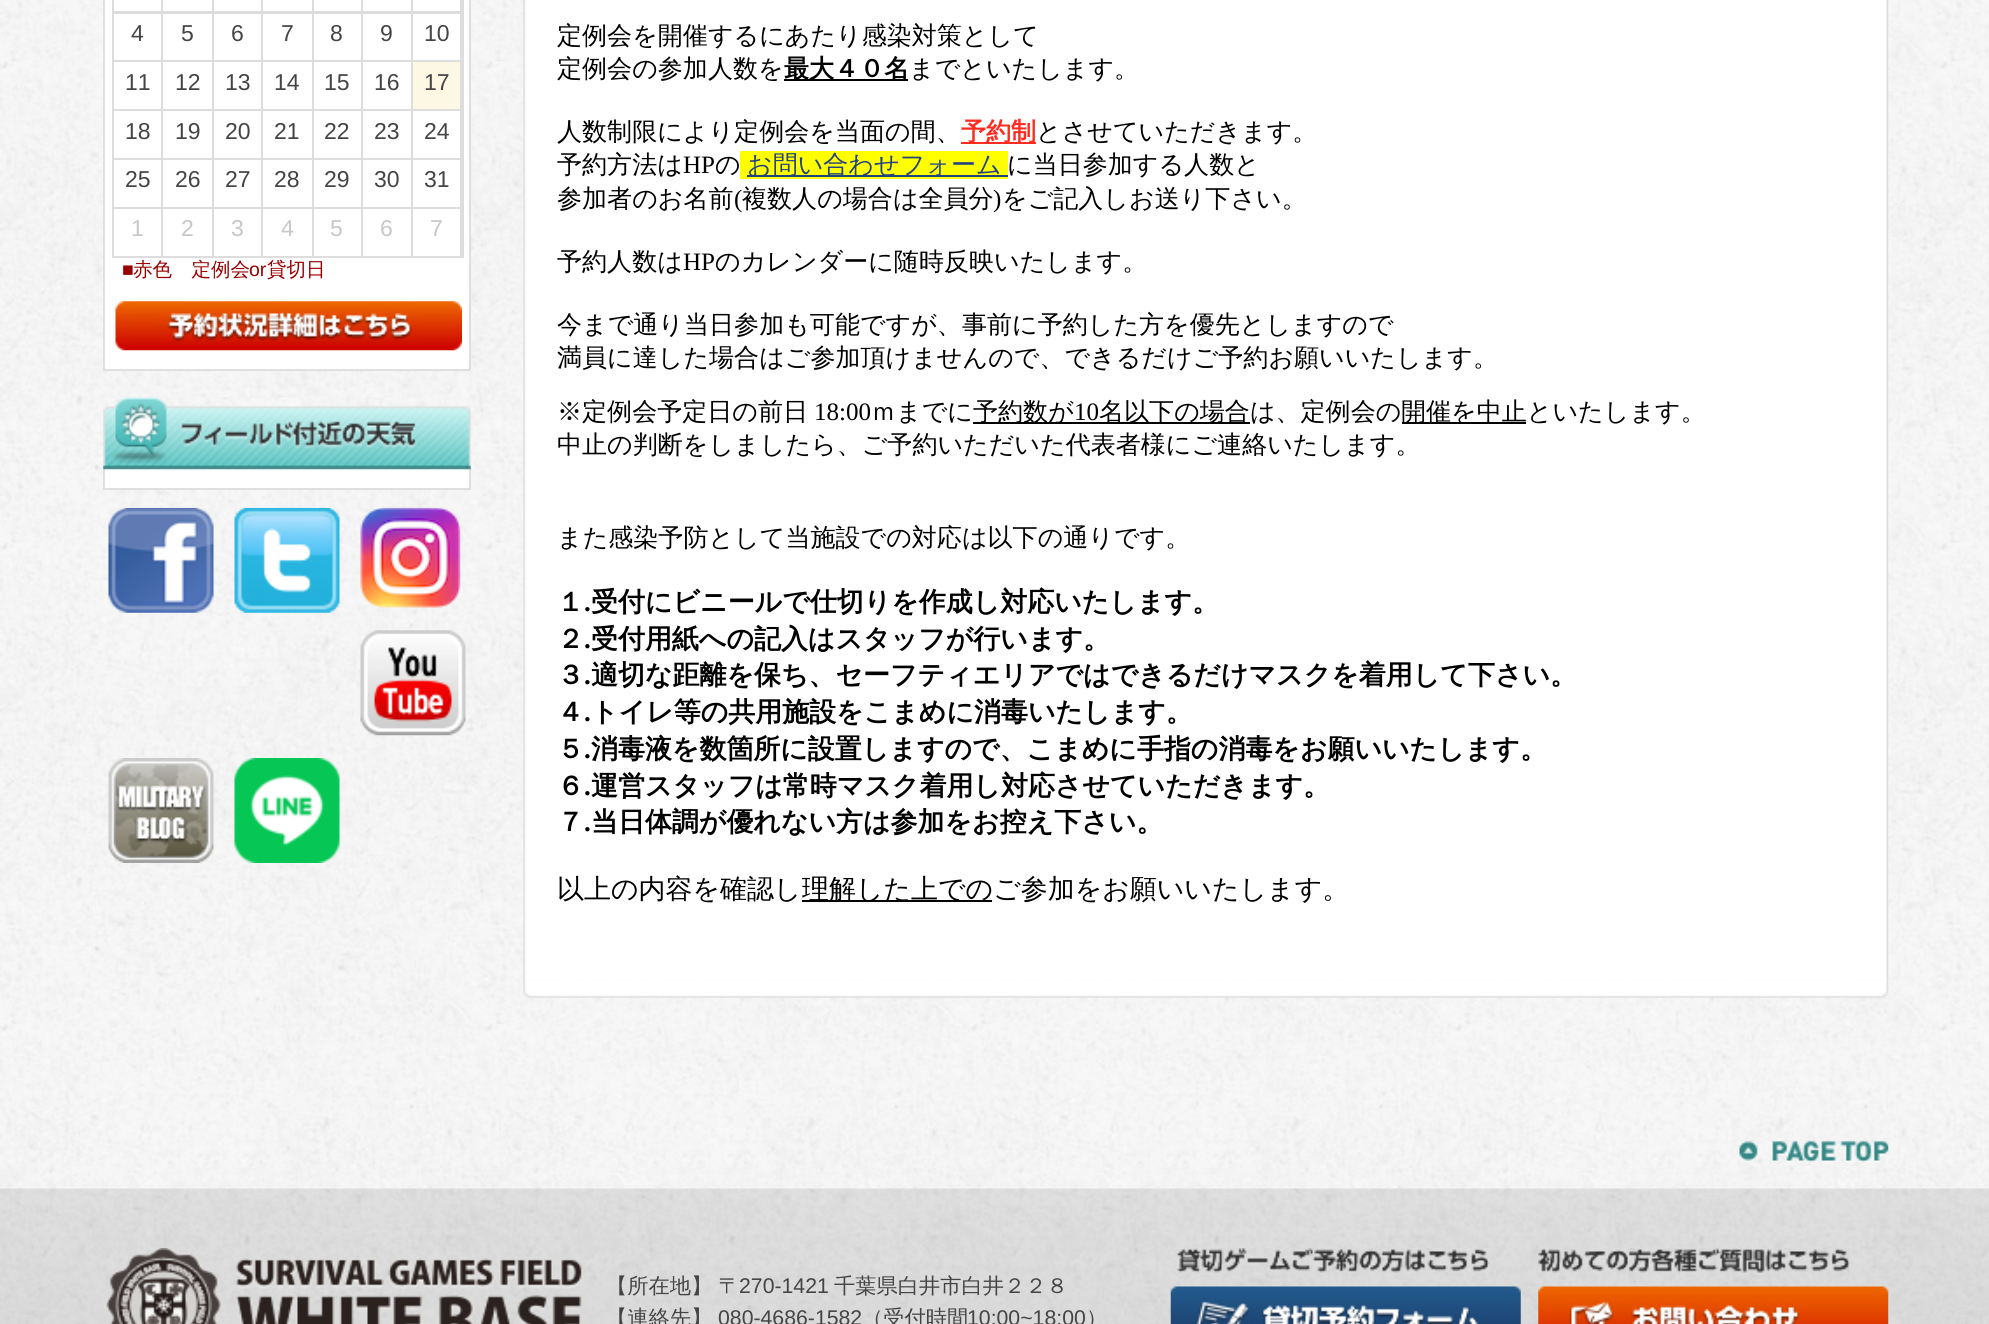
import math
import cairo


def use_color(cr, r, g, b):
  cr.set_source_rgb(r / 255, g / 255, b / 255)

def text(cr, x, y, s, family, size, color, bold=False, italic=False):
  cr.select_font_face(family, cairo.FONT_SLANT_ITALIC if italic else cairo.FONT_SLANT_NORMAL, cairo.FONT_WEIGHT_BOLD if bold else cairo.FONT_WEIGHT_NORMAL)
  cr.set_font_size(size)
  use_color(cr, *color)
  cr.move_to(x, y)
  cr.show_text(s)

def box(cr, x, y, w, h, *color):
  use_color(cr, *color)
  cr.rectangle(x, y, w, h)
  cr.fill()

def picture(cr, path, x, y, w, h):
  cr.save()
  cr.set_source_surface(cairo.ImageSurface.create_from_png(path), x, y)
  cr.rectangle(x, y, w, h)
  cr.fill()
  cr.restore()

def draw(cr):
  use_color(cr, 255, 255, 255)
  cr.paint()
  picture(cr, "img_01.png", 0, 0, 1989, 1189)
  box(cr, 105, 0, 364, 369, 255, 255, 255)
  box(cr, 469, 0, 2, 371, 223, 223, 223)
  box(cr, 103, 369, 368, 2, 223, 223, 223)
  box(cr, 103, 0, 2, 371, 223, 223, 223)
  box(cr, 462, 0, 2, 257, 221, 221, 221)
  box(cr, 112, 256, 352, 2, 221, 221, 221)
  box(cr, 112, 0, 2, 257, 221, 221, 221)
  box(cr, 460, 0, 2, 12, 221, 221, 221)
  box(cr, 411, 11, 51, 3, 221, 221, 221)
  box(cr, 411, 0, 2, 61, 221, 221, 221)
  box(cr, 361, 11, 52, 3, 221, 221, 221)
  box(cr, 361, 0, 2, 12, 221, 221, 221)
  box(cr, 312, 11, 50, 1, 221, 221, 221)
  box(cr, 312, 0, 2, 12, 221, 221, 221)
  box(cr, 261, 11, 52, 1, 221, 221, 221)
  box(cr, 261, 0, 2, 12, 221, 221, 221)
  box(cr, 212, 11, 51, 1, 221, 221, 221)
  box(cr, 212, 0, 2, 12, 221, 221, 221)
  box(cr, 161, 11, 53, 1, 221, 221, 221)
  box(cr, 161, 0, 2, 12, 221, 221, 221)
  box(cr, 112, 11, 51, 1, 221, 221, 221)
  box(cr, 460, 12, 2, 49, 221, 221, 221)
  box(cr, 361, 60, 101, 2, 221, 221, 221)
  box(cr, 361, 12, 2, 49, 221, 221, 221)
  box(cr, 312, 12, 50, 2, 221, 221, 221)
  box(cr, 312, 60, 50, 2, 221, 221, 221)
  box(cr, 312, 12, 2, 49, 221, 221, 221)
  box(cr, 261, 12, 52, 2, 221, 221, 221)
  box(cr, 261, 60, 52, 2, 221, 221, 221)
  box(cr, 261, 12, 2, 49, 221, 221, 221)
  box(cr, 212, 12, 51, 2, 221, 221, 221)
  box(cr, 212, 60, 51, 2, 221, 221, 221)
  box(cr, 212, 12, 2, 49, 221, 221, 221)
  box(cr, 161, 12, 53, 2, 221, 221, 221)
  box(cr, 161, 60, 53, 2, 221, 221, 221)
  box(cr, 161, 12, 2, 49, 221, 221, 221)
  box(cr, 112, 12, 51, 2, 221, 221, 221)
  box(cr, 112, 60, 51, 2, 221, 221, 221)
  box(cr, 460, 60, 2, 50, 221, 221, 221)
  box(cr, 411, 109, 51, 2, 221, 221, 221)
  box(cr, 411, 60, 2, 50, 221, 221, 221)
  box(cr, 361, 109, 52, 2, 221, 221, 221)
  box(cr, 361, 60, 2, 50, 221, 221, 221)
  box(cr, 312, 109, 50, 2, 221, 221, 221)
  box(cr, 312, 60, 2, 50, 221, 221, 221)
  box(cr, 261, 109, 52, 2, 221, 221, 221)
  box(cr, 261, 60, 2, 50, 221, 221, 221)
  box(cr, 212, 109, 51, 2, 221, 221, 221)
  box(cr, 212, 60, 2, 50, 221, 221, 221)
  box(cr, 161, 109, 53, 2, 221, 221, 221)
  box(cr, 161, 60, 2, 50, 221, 221, 221)
  box(cr, 112, 109, 51, 2, 221, 221, 221)
  box(cr, 413, 62, 47, 47, 252, 248, 227)
  box(cr, 460, 109, 2, 50, 221, 221, 221)
  box(cr, 411, 158, 51, 2, 221, 221, 221)
  box(cr, 411, 109, 2, 50, 221, 221, 221)
  box(cr, 361, 158, 52, 2, 221, 221, 221)
  box(cr, 361, 109, 2, 50, 221, 221, 221)
  box(cr, 312, 158, 50, 2, 221, 221, 221)
  box(cr, 312, 109, 2, 50, 221, 221, 221)
  box(cr, 261, 158, 52, 2, 221, 221, 221)
  box(cr, 261, 109, 2, 50, 221, 221, 221)
  box(cr, 212, 158, 51, 2, 221, 221, 221)
  box(cr, 212, 109, 2, 50, 221, 221, 221)
  box(cr, 161, 158, 53, 2, 221, 221, 221)
  box(cr, 161, 109, 2, 50, 221, 221, 221)
  box(cr, 112, 158, 51, 2, 221, 221, 221)
  box(cr, 460, 158, 2, 50, 221, 221, 221)
  box(cr, 411, 207, 51, 2, 221, 221, 221)
  box(cr, 411, 158, 2, 50, 221, 221, 221)
  box(cr, 361, 207, 52, 2, 221, 221, 221)
  box(cr, 361, 158, 2, 50, 221, 221, 221)
  box(cr, 312, 207, 50, 2, 221, 221, 221)
  box(cr, 312, 158, 2, 50, 221, 221, 221)
  box(cr, 261, 207, 52, 2, 221, 221, 221)
  box(cr, 261, 158, 2, 50, 221, 221, 221)
  box(cr, 212, 207, 51, 2, 221, 221, 221)
  box(cr, 212, 158, 2, 50, 221, 221, 221)
  box(cr, 161, 207, 53, 2, 221, 221, 221)
  box(cr, 161, 158, 2, 50, 221, 221, 221)
  box(cr, 112, 207, 51, 2, 221, 221, 221)
  box(cr, 161, 207, 2, 50, 221, 221, 221)
  box(cr, 212, 207, 2, 50, 221, 221, 221)
  box(cr, 261, 207, 2, 50, 221, 221, 221)
  box(cr, 312, 207, 2, 50, 221, 221, 221)
  box(cr, 361, 207, 2, 50, 221, 221, 221)
  box(cr, 460, 207, 2, 50, 221, 221, 221)
  box(cr, 411, 207, 2, 50, 221, 221, 221)
  picture(cr, "img_02.png", 115, 301, 347, 50)
  box(cr, 105, 469, 364, 19, 255, 255, 255)
  box(cr, 469, 469, 2, 21, 223, 223, 223)
  box(cr, 103, 488, 368, 2, 223, 223, 223)
  box(cr, 103, 469, 2, 21, 223, 223, 223)
  picture(cr, "img_03.png", 103, 397, 368, 73)
  picture(cr, "img_04.png", 108, 507, 106, 106)
  picture(cr, "img_05.png", 234, 507, 106, 106)
  picture(cr, "img_06.png", 360, 507, 101, 101)
  picture(cr, "img_07.png", 360, 630, 106, 106)
  picture(cr, "img_08.png", 108, 758, 106, 105)
  picture(cr, "img_09.png", 234, 758, 106, 105)
  picture(cr, "img_10.png", 523, 980, 1366, 18)
  picture(cr, "img_11.png", 523, 0, 1366, 980)
  box(cr, 784, 79, 124, 2, 0, 0, 0)
  box(cr, 961, 142, 75, 2, 255, 45, 33)
  box(cr, 740, 151, 268, 28, 255, 255, 0)
  box(cr, 747, 175, 261, 2, 35, 66, 130)
  box(cr, 973, 422, 277, 2, 0, 0, 0)
  box(cr, 1402, 422, 124, 2, 0, 0, 0)
  box(cr, 802, 900, 190, 2, 0, 0, 0)
  picture(cr, "img_12.png", 1738, 1138, 151, 28)
  picture(cr, "img_13.png", 0, 1188, 1989, 136)
  picture(cr, "img_14.png", 106, 1248, 477, 76)
  picture(cr, "img_15.png", 1175, 1248, 315, 25)
  picture(cr, "img_16.png", 1170, 1286, 351, 38)
  picture(cr, "img_17.png", 1538, 1248, 312, 25)
  picture(cr, "img_18.png", 1538, 1286, 351, 38)
  text(cr, 131, 41, "4", "Liberation Sans", 23, (68, 68, 68))
  text(cr, 181, 41, "5", "Liberation Sans", 23, (68, 68, 68))
  text(cr, 231, 41, "6", "Liberation Sans", 23, (68, 68, 68))
  text(cr, 281, 41, "7", "Liberation Sans", 23, (68, 68, 68))
  text(cr, 330, 41, "8", "Liberation Sans", 23, (68, 68, 68))
  text(cr, 380, 41, "9", "Liberation Sans", 23, (68, 68, 68))
  text(cr, 424, 41, "10", "Liberation Sans", 23, (68, 68, 68))
  text(cr, 125, 90, "11", "Liberation Sans", 23, (68, 68, 68))
  text(cr, 175, 90, "12", "Liberation Sans", 23, (68, 68, 68))
  text(cr, 225, 90, "13", "Liberation Sans", 23, (68, 68, 68))
  text(cr, 274, 90, "14", "Liberation Sans", 23, (68, 68, 68))
  text(cr, 324, 90, "15", "Liberation Sans", 23, (68, 68, 68))
  text(cr, 374, 90, "16", "Liberation Sans", 23, (68, 68, 68))
  text(cr, 424, 90, "17", "Liberation Sans", 23, (68, 68, 68))
  text(cr, 125, 139, "18", "Liberation Sans", 23, (68, 68, 68))
  text(cr, 175, 139, "19", "Liberation Sans", 23, (68, 68, 68))
  text(cr, 225, 139, "20", "Liberation Sans", 23, (68, 68, 68))
  text(cr, 274, 139, "21", "Liberation Sans", 23, (68, 68, 68))
  text(cr, 324, 139, "22", "Liberation Sans", 23, (68, 68, 68))
  text(cr, 374, 139, "23", "Liberation Sans", 23, (68, 68, 68))
  text(cr, 424, 139, "24", "Liberation Sans", 23, (68, 68, 68))
  text(cr, 125, 187, "25", "Liberation Sans", 23, (68, 68, 68))
  text(cr, 175, 187, "26", "Liberation Sans", 23, (68, 68, 68))
  text(cr, 225, 187, "27", "Liberation Sans", 23, (68, 68, 68))
  text(cr, 274, 187, "28", "Liberation Sans", 23, (68, 68, 68))
  text(cr, 324, 187, "29", "Liberation Sans", 23, (68, 68, 68))
  text(cr, 374, 187, "30", "Liberation Sans", 23, (68, 68, 68))
  text(cr, 424, 187, "31", "Liberation Sans", 23, (68, 68, 68))
  text(cr, 131, 236, "1", "Liberation Sans", 23, (199, 199, 199))
  text(cr, 181, 236, "2", "Liberation Sans", 23, (199, 199, 199))
  text(cr, 231, 236, "3", "Liberation Sans", 23, (199, 199, 199))
  text(cr, 281, 236, "4", "Liberation Sans", 23, (199, 199, 199))
  text(cr, 330, 236, "5", "Liberation Sans", 23, (199, 199, 199))
  text(cr, 380, 236, "6", "Liberation Sans", 23, (199, 199, 199))
  text(cr, 430, 236, "7", "Liberation Sans", 23, (199, 199, 199))
  text(cr, 122, 276, "■", "Liberation Sans", 19.5, (153, 0, 0))
  text(cr, 133, 276, "赤色　定例会", "WenQuanYi Zen Hei Medium", 19.5, (153, 0, 0))
  text(cr, 249, 276, "or", "Liberation Sans", 19.5, (153, 0, 0))
  text(cr, 267, 276, "貸切日", "WenQuanYi Zen Hei Medium", 19.5, (153, 0, 0))
  text(cr, 557, 44, "定例会を開催するにあたり感染対策として", "WenQuanYi Zen Hei Medium", 25.05, (0, 0, 0))
  text(cr, 557, 77, "定例会の参加人数を", "WenQuanYi Zen Hei Medium", 25.05, (0, 0, 0))
  text(cr, 784, 77, "最大４０名", "WenQuanYi Zen Hei", 25.05, (0, 0, 0), bold=True)
  text(cr, 909, 77, "までといたします。", "WenQuanYi Zen Hei Medium", 25.05, (0, 0, 0))
  text(cr, 557, 140, "人数制限により定例会を当面の間、", "WenQuanYi Zen Hei Medium", 25.05, (0, 0, 0))
  text(cr, 961, 140, "予約制", "WenQuanYi Zen Hei", 25.05, (255, 45, 33), bold=True)
  text(cr, 1036, 140, "とさせていただきます。", "WenQuanYi Zen Hei Medium", 25.05, (0, 0, 0))
  text(cr, 557, 173, "予約方法は", "WenQuanYi Zen Hei Medium", 25.05, (0, 0, 0))
  text(cr, 683, 173, "HP", "Liberation Serif", 25.05, (0, 0, 0))
  text(cr, 715, 173, "の", "WenQuanYi Zen Hei Medium", 25.05, (0, 0, 0))
  text(cr, 747, 173, "お問い合わせフォーム", "WenQuanYi Zen Hei Medium", 25.05, (35, 66, 130))
  text(cr, 1007, 173, "に当日参加する人数と", "WenQuanYi Zen Hei Medium", 25.05, (0, 0, 0))
  text(cr, 557, 207, "参加者のお名前", "WenQuanYi Zen Hei Medium", 25.05, (0, 0, 0))
  text(cr, 734, 207, "(", "Liberation Serif", 25.05, (0, 0, 0))
  text(cr, 742, 207, "複数人の場合は全員分", "WenQuanYi Zen Hei Medium", 25.05, (0, 0, 0))
  text(cr, 993, 207, ")", "Liberation Serif", 25.05, (0, 0, 0))
  text(cr, 1002, 207, "をご記入しお送り下さい。", "WenQuanYi Zen Hei Medium", 25.05, (0, 0, 0))
  text(cr, 557, 270, "予約人数は", "WenQuanYi Zen Hei Medium", 25.05, (0, 0, 0))
  text(cr, 683, 270, "HP", "Liberation Serif", 25.05, (0, 0, 0))
  text(cr, 715, 270, "のカレンダーに随時反映いたします。", "WenQuanYi Zen Hei Medium", 25.05, (0, 0, 0))
  text(cr, 557, 333, "今まで通り当日参加も可能ですが、事前に予約した方を優先としますので", "WenQuanYi Zen Hei Medium", 25.05, (0, 0, 0))
  text(cr, 557, 366, "満員に達した場合はご参加頂けませんので、できるだけご予約お願いいたします。", "WenQuanYi Zen Hei Medium", 25.05, (0, 0, 0))
  text(cr, 557, 420, "※定例会予定日の前日", "WenQuanYi Zen Hei Medium", 25.05, (0, 0, 0))
  text(cr, 814, 420, "18:00", "Liberation Serif", 25.05, (0, 0, 0))
  text(cr, 871, 420, "ｍまでに", "WenQuanYi Zen Hei Medium", 25.05, (0, 0, 0))
  text(cr, 973, 420, "予約数が", "WenQuanYi Zen Hei Medium", 25.05, (0, 0, 0))
  text(cr, 1074, 420, "10", "Liberation Serif", 25.05, (0, 0, 0))
  text(cr, 1099, 420, "名以下の場合は、定例会の", "WenQuanYi Zen Hei Medium", 25.05, (0, 0, 0))
  text(cr, 1401, 420, "開催を中止といたします。", "WenQuanYi Zen Hei Medium", 25.05, (0, 0, 0))
  text(cr, 557, 453, "中止の判断をしましたら、ご予約いただいた代表者様にご連絡いたします。", "WenQuanYi Zen Hei Medium", 25.05, (0, 0, 0))
  text(cr, 557, 546, "また感染予防として当施設での対応は以下の通りです。", "WenQuanYi Zen Hei Medium", 25.05, (0, 0, 0))
  text(cr, 557, 611, "１", "WenQuanYi Zen Hei", 26.95, (0, 0, 0), bold=True)
  text(cr, 584, 611, ".", "Liberation Serif", 26.95, (0, 0, 0), bold=True)
  text(cr, 591, 611, "受付にビニールで仕切りを作成し対応いたします。", "WenQuanYi Zen Hei", 26.95, (0, 0, 0), bold=True)
  text(cr, 557, 648, "２", "WenQuanYi Zen Hei", 26.95, (0, 0, 0), bold=True)
  text(cr, 584, 648, ".", "Liberation Serif", 26.95, (0, 0, 0), bold=True)
  text(cr, 591, 648, "受付用紙への記入はスタッフが行います。", "WenQuanYi Zen Hei", 26.95, (0, 0, 0), bold=True)
  text(cr, 557, 684, "３", "WenQuanYi Zen Hei", 26.95, (0, 0, 0), bold=True)
  text(cr, 584, 684, ".", "Liberation Serif", 26.95, (0, 0, 0), bold=True)
  text(cr, 591, 684, "適切な距離を保ち、セーフティエリアではできるだけマスクを着用して下さい。", "WenQuanYi Zen Hei", 26.95, (0, 0, 0), bold=True)
  text(cr, 557, 721, "４", "WenQuanYi Zen Hei", 26.95, (0, 0, 0), bold=True)
  text(cr, 584, 721, ".", "Liberation Serif", 26.95, (0, 0, 0), bold=True)
  text(cr, 591, 721, "トイレ等の共用施設をこまめに消毒いたします。", "WenQuanYi Zen Hei", 26.95, (0, 0, 0), bold=True)
  text(cr, 557, 758, "５", "WenQuanYi Zen Hei", 26.95, (0, 0, 0), bold=True)
  text(cr, 584, 758, ".", "Liberation Serif", 26.95, (0, 0, 0), bold=True)
  text(cr, 591, 758, "消毒液を数箇所に設置しますので、こまめに手指の消毒をお願いいたします。", "WenQuanYi Zen Hei", 26.95, (0, 0, 0), bold=True)
  text(cr, 557, 795, "６", "WenQuanYi Zen Hei", 26.95, (0, 0, 0), bold=True)
  text(cr, 584, 795, ".", "Liberation Serif", 26.95, (0, 0, 0), bold=True)
  text(cr, 591, 795, "運営スタッフは常時マスク着用し対応させていただきます。", "WenQuanYi Zen Hei", 26.95, (0, 0, 0), bold=True)
  text(cr, 557, 831, "７", "WenQuanYi Zen Hei", 26.95, (0, 0, 0), bold=True)
  text(cr, 584, 831, ".", "Liberation Serif", 26.95, (0, 0, 0), bold=True)
  text(cr, 591, 831, "当日体調が優れない方は参加をお控え下さい。", "WenQuanYi Zen Hei", 26.95, (0, 0, 0), bold=True)
  text(cr, 557, 898, "以上の内容を確認し", "WenQuanYi Zen Hei Medium", 26.95, (0, 0, 0))
  text(cr, 802, 898, "理解した上でのご参加をお願いいたします。", "WenQuanYi Zen Hei Medium", 26.95, (0, 0, 0))
  text(cr, 606, 1293, "【所在地】 〒", "WenQuanYi Zen Hei Medium", 21.25, (68, 68, 68))
  text(cr, 739, 1293, "270-1421", "Liberation Sans", 21.25, (68, 68, 68))
  text(cr, 834, 1293, "千葉県白井市白井２２８", "WenQuanYi Zen Hei Medium", 21.25, (68, 68, 68))
  text(cr, 606, 1325, "【連絡先】", "WenQuanYi Zen Hei Medium", 21.25, (68, 68, 68))
  text(cr, 718, 1325, "080-4686-1582", "Liberation Sans", 21.25, (68, 68, 68))
  text(cr, 862, 1325, "（受付時間", "WenQuanYi Zen Hei Medium", 21.25, (68, 68, 68))
  text(cr, 967, 1325, "10:00~18:00", "Liberation Sans", 21.25, (68, 68, 68))
  text(cr, 1086, 1325, "）", "WenQuanYi Zen Hei Medium", 21.25, (68, 68, 68))


surface = cairo.ImageSurface(cairo.FORMAT_RGB24, 1989, 1324)
cr = cairo.Context(surface)
options = cairo.FontOptions()
options.set_hint_metrics(cairo.HINT_METRICS_OFF)
options.set_hint_style(cairo.HINT_STYLE_NONE)
cr.set_font_options(options)
cr.set_miter_limit(4)
draw(cr)
surface.write_to_png("out.png")
